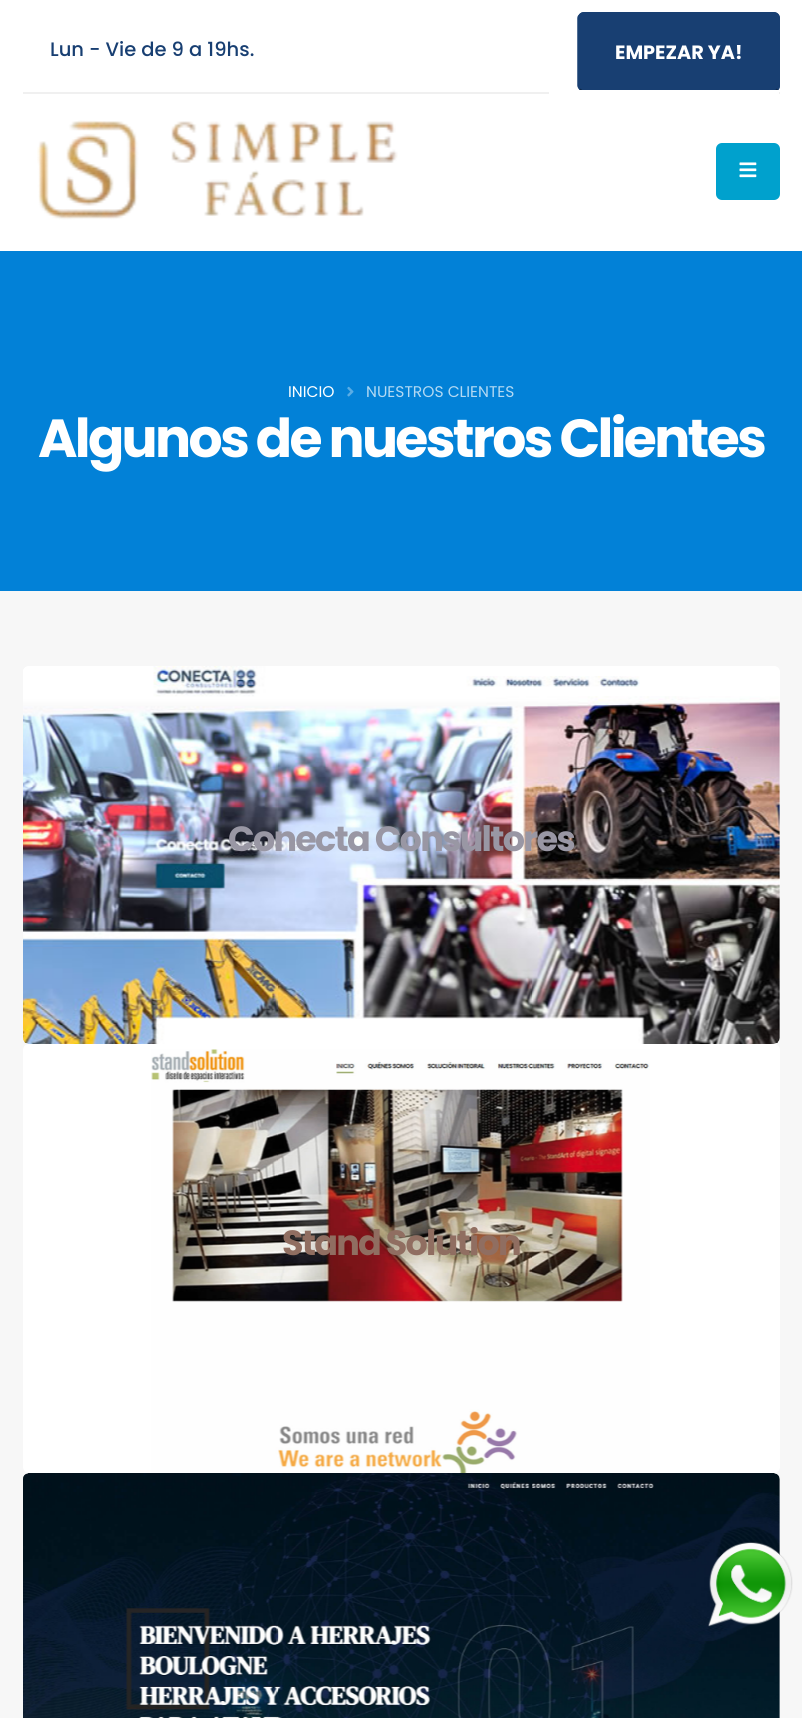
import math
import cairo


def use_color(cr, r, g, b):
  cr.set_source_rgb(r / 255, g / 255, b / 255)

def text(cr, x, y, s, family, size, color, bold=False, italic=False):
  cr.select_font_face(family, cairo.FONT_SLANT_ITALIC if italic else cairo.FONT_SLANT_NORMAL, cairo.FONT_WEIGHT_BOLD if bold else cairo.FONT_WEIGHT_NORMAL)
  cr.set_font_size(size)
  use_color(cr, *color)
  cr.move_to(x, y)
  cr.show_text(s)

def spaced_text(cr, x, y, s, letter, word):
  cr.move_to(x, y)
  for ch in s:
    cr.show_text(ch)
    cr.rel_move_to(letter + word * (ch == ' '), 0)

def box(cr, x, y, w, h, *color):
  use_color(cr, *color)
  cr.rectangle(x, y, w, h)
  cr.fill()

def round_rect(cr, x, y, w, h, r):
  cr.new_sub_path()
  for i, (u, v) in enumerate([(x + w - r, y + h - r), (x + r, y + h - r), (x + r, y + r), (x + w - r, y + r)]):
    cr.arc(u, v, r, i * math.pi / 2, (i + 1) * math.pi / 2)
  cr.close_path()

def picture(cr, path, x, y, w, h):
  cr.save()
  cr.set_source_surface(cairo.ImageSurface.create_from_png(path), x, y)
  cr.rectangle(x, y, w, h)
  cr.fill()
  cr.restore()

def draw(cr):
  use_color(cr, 255, 255, 255)
  cr.paint()
  box(cr, 23, 92, 757, 2, 240, 240, 240)
  use_color(cr, 24, 63, 114)
  round_rect(cr, 578, 12, 202, 80, 6)
  cr.fill()
  cr.new_path()
  cr.move_to(777.5, 89)
  cr.curve_to(776.5, 90, 775.5, 91, 774, 91)
  cr.line_to(583.5, 91)
  cr.curve_to(582, 91, 581, 90, 580, 89)
  use_color(cr, 15, 40, 72)
  cr.set_line_width(1.5)
  cr.stroke()
  cr.new_path()
  cr.move_to(580, 89)
  cr.curve_to(579, 88, 578, 87, 578, 85.5)
  cr.line_to(578, 18)
  cr.curve_to(578, 16.5, 579, 15.5, 580, 14.5)
  cr.curve_to(581, 13.5, 582, 13, 583.5, 13)
  cr.line_to(774, 13)
  cr.curve_to(775.5, 13, 776.5, 13.5, 777.5, 14.5)
  cr.curve_to(778.5, 15.5, 779, 16.5, 779, 18)
  cr.line_to(779, 85.5)
  cr.curve_to(779, 87, 778.5, 88, 777.5, 89)
  use_color(cr, 24, 63, 114)
  cr.stroke()
  box(cr, 549, 90, 230, 4, 255, 255, 255)
  picture(cr, "img_01.png", 37, 120, 361, 100)
  use_color(cr, 0, 161, 205)
  round_rect(cr, 716, 143, 64, 57, 6)
  cr.fill()
  picture(cr, "img_02.png", 739, 162, 18, 16)
  box(cr, 0, 251, 802, 340, 2, 129, 215)
  picture(cr, "img_03.png", 347, 386, 7, 11)
  box(cr, 0, 591, 802, 1127, 247, 247, 247)
  use_color(cr, 255, 255, 255)
  round_rect(cr, 23, 666, 757, 378, 6)
  cr.fill()
  picture(cr, "img_04.png", 23, 666, 757, 378)
  round_rect(cr, 23, 1044, 757, 429, 6)
  cr.fill()
  picture(cr, "img_05.png", 151, 1049, 499, 424)
  round_rect(cr, 23, 1473, 757, 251, 6)
  cr.fill()
  picture(cr, "img_06.png", 23, 1473, 757, 245)
  picture(cr, "img_07.png", 708, 1542, 85, 85)
  text(cr, 50, 56, "Lun - Vie de 9 a 19hs.", "Poppins Medium", 19.5, (24, 63, 114))
  text(cr, 615, 59, "EMPEZAR YA!", "Poppins", 19.25, (255, 255, 255), bold=True)
  text(cr, 288, 397, "INICIO", "Poppins", 15.5, (255, 255, 255))
  text(cr, 366, 397, "NUESTROS CLIENTES", "Poppins", 15.5, (179, 217, 243))
  cr.select_font_face("Poppins", cairo.FONT_SLANT_NORMAL, cairo.FONT_WEIGHT_BOLD)
  cr.set_font_size(53.6)
  use_color(cr, 255, 255, 255)
  spaced_text(cr, 38, 457, "Algunos de nuestros Clientes", -2.7, 0)
  cr.set_font_size(35)
  use_color(cr, 153, 151, 164)
  spaced_text(cr, 228, 851, "Conecta Consultores", -1.75, 0)
  use_color(cr, 144, 110, 97)
  spaced_text(cr, 282, 1255, "Stand Solution", -1.75, 0)


surface = cairo.ImageSurface(cairo.FORMAT_RGB24, 802, 1718)
cr = cairo.Context(surface)
options = cairo.FontOptions()
options.set_hint_metrics(cairo.HINT_METRICS_OFF)
options.set_hint_style(cairo.HINT_STYLE_NONE)
cr.set_font_options(options)
cr.set_miter_limit(4)
draw(cr)
surface.write_to_png("out.png")
